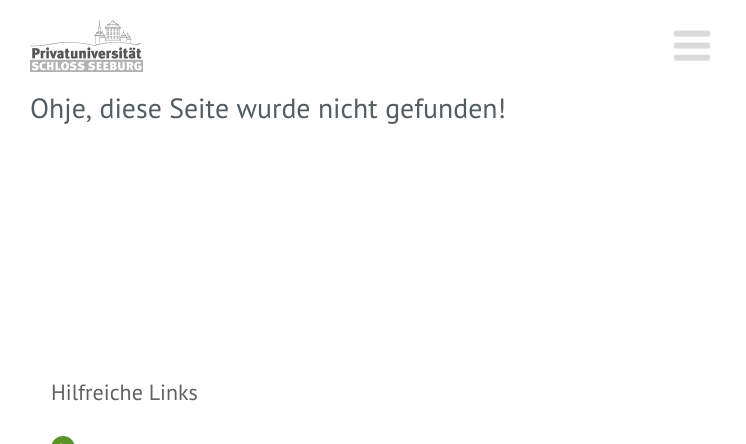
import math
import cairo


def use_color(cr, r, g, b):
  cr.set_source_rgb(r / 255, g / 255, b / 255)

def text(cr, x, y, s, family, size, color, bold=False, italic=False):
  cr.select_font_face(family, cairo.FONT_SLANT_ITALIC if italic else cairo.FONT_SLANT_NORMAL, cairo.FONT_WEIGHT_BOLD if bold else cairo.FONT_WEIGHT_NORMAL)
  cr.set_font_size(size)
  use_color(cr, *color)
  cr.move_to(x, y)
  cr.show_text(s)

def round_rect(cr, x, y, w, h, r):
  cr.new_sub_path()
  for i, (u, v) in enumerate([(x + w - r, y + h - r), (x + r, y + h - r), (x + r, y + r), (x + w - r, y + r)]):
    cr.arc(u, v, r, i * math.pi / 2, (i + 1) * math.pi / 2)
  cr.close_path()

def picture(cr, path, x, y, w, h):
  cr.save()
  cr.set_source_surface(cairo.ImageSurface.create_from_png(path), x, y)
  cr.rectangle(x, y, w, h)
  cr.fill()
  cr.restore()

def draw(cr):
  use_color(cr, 255, 255, 255)
  cr.paint()
  picture(cr, "img_01.png", 30, 20, 113, 52)
  picture(cr, "img_02.png", 674, 30, 36, 31)
  use_color(cr, 89, 148, 40)
  round_rect(cr, 51, 436, 24, 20, 12)
  cr.fill()
  picture(cr, "img_03.png", 60, 443, 2, 1)
  text(cr, 30, 118, "Ohje, diese Seite wurde nicht gefunden!", "PT Sans", 27.8, (82, 92, 97))
  text(cr, 51, 400, "Hilfreiche Links", "PT Sans", 22, (97, 97, 97))


surface = cairo.ImageSurface(cairo.FORMAT_RGB24, 746, 444)
cr = cairo.Context(surface)
options = cairo.FontOptions()
options.set_hint_metrics(cairo.HINT_METRICS_OFF)
options.set_hint_style(cairo.HINT_STYLE_NONE)
cr.set_font_options(options)
cr.set_miter_limit(4)
draw(cr)
surface.write_to_png("out.png")
